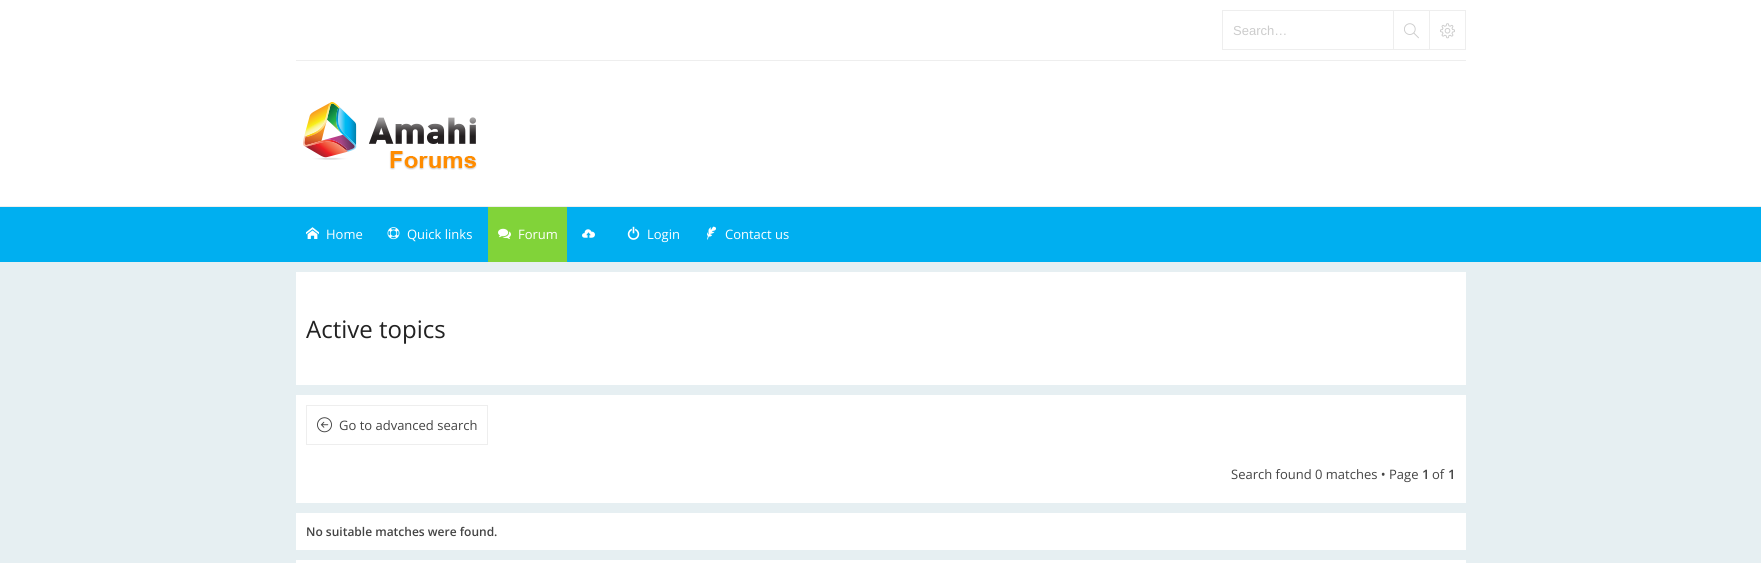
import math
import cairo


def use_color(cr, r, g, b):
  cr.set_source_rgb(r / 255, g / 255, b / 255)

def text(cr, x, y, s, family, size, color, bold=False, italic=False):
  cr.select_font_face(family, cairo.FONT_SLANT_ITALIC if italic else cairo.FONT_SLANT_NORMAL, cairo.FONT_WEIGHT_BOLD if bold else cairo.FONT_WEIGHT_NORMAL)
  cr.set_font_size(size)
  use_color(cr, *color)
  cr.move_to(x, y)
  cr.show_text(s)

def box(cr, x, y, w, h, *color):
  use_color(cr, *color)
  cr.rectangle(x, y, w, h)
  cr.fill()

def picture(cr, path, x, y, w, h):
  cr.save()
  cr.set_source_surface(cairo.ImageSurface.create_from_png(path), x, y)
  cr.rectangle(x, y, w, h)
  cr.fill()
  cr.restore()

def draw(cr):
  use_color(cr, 230, 239, 242)
  cr.paint()
  box(cr, 0, 0, 1761, 206, 255, 255, 255)
  box(cr, 296, 60, 1170, 1, 238, 238, 238)
  cr.rectangle(1222.5, 10.5, 243, 39)
  cr.set_line_width(1)
  cr.stroke()
  box(cr, 1393, 11, 1, 38, 238, 238, 238)
  picture(cr, "img_01.png", 1404, 23, 15, 16)
  box(cr, 1429, 11, 1, 38, 238, 238, 238)
  picture(cr, "img_02.png", 1440, 23, 15, 16)
  picture(cr, "img_03.png", 303, 102, 174, 68)
  box(cr, 0, 207, 1761, 55, 0, 175, 240)
  box(cr, 0, 206, 1761, 1, 238, 238, 238)
  picture(cr, "img_04.png", 306, 227, 13, 12)
  picture(cr, "img_05.png", 387, 227, 13, 13)
  box(cr, 488, 207, 79, 55, 129, 211, 57)
  picture(cr, "img_06.png", 498, 228, 13, 11)
  picture(cr, "img_07.png", 582, 229, 13, 9)
  picture(cr, "img_08.png", 627, 226, 13, 14)
  picture(cr, "img_09.png", 707, 226, 9, 14)
  box(cr, 296, 272, 1170, 113, 255, 255, 255)
  box(cr, 296, 395, 1170, 108, 255, 255, 255)
  cr.rectangle(306.5, 405.5, 181, 39)
  use_color(cr, 238, 238, 238)
  cr.stroke()
  picture(cr, "img_10.png", 317, 417, 15, 16)
  box(cr, 296, 513, 1170, 37, 255, 255, 255)
  box(cr, 296, 560, 1170, 3, 255, 255, 255)
  text(cr, 1233, 35, "Search…", "Liberation Sans", 13, (204, 204, 204))
  text(cr, 326, 239, "Home", "Open Sans", 13, (255, 255, 255))
  text(cr, 407, 239, "Quick links", "Open Sans", 13, (255, 255, 255))
  text(cr, 518, 239, "Forum", "Open Sans", 13, (255, 255, 255))
  text(cr, 647, 239, "Login", "Open Sans", 13, (255, 255, 255))
  text(cr, 725, 239, "Contact us", "Open Sans", 13, (255, 255, 255))
  text(cr, 306, 338, "Active topics", "Open Sans", 24, (34, 34, 34))
  text(cr, 339, 430, "Go to advanced search", "Open Sans", 13, (68, 68, 68))
  text(cr, 1231, 479, "Search found 0 matches • Page", "Open Sans", 13, (68, 68, 68))
  text(cr, 1422, 479, "1", "Open Sans SemiBold", 13, (68, 68, 68))
  text(cr, 1432, 479, "of", "Open Sans", 13, (68, 68, 68))
  text(cr, 1448, 479, "1", "Open Sans SemiBold", 13, (68, 68, 68))
  text(cr, 306, 536, "No suitable matches were found.", "Open Sans SemiBold", 12, (68, 68, 68))


surface = cairo.ImageSurface(cairo.FORMAT_RGB24, 1761, 563)
cr = cairo.Context(surface)
options = cairo.FontOptions()
options.set_hint_metrics(cairo.HINT_METRICS_OFF)
options.set_hint_style(cairo.HINT_STYLE_NONE)
cr.set_font_options(options)
cr.set_miter_limit(4)
draw(cr)
surface.write_to_png("out.png")
